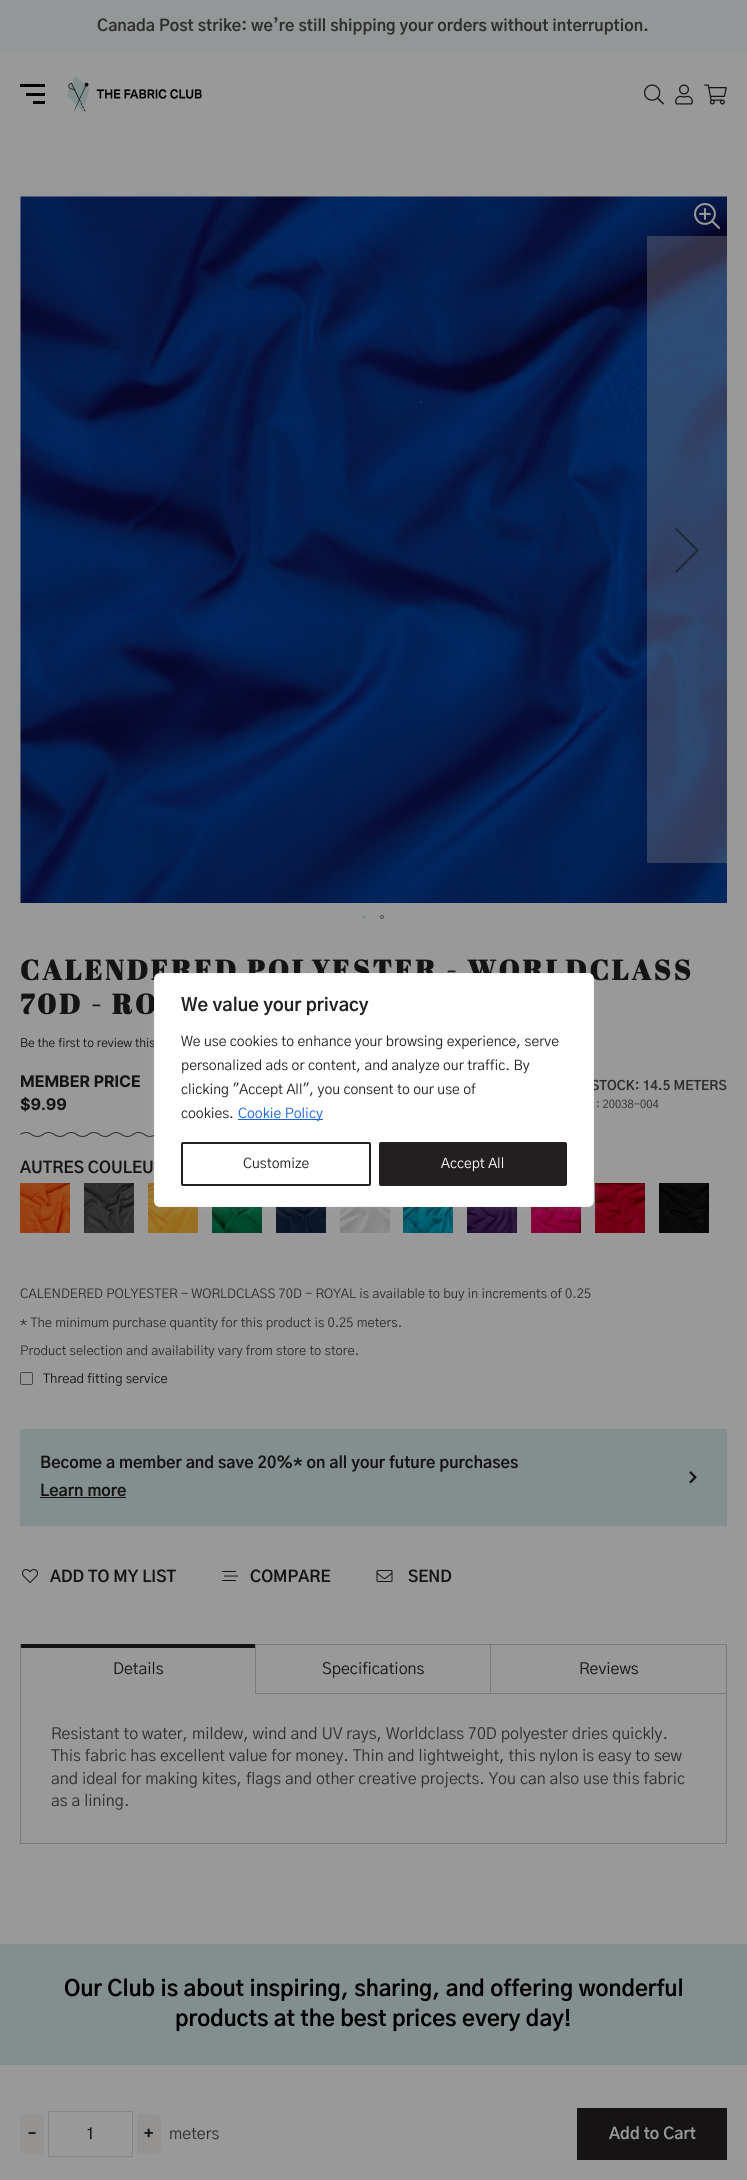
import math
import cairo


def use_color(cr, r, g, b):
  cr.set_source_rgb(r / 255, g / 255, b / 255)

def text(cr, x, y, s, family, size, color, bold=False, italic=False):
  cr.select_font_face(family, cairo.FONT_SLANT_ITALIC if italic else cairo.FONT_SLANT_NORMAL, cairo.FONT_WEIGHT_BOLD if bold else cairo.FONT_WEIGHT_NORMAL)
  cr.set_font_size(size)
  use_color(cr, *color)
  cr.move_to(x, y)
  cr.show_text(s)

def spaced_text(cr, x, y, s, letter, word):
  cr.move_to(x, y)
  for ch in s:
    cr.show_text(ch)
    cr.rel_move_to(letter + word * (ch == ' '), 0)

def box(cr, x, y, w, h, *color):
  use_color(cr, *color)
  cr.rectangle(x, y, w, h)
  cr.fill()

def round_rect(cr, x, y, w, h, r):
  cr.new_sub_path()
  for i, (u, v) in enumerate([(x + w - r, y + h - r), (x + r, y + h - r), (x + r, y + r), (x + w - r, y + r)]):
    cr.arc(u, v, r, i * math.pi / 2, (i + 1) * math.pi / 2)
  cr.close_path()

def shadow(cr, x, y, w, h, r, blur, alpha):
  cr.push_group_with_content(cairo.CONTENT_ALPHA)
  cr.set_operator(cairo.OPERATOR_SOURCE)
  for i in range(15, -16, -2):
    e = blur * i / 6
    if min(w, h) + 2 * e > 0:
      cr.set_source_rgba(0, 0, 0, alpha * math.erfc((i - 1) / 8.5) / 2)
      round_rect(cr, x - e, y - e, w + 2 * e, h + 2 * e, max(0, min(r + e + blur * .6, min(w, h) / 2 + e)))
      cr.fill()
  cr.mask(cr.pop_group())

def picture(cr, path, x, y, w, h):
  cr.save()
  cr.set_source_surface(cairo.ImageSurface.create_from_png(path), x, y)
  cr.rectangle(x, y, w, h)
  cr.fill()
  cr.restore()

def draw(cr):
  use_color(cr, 153, 153, 153)
  cr.paint()
  box(cr, 0, 0, 747, 52, 148, 151, 151)
  box(cr, 20, 84, 25, 3, 0, 0, 0)
  box(cr, 26, 93, 19, 3, 0, 0, 0)
  box(cr, 33, 101, 12, 3, 0, 0, 0)
  picture(cr, "img_01.png", 67, 76, 135, 36)
  picture(cr, "img_02.png", 644, 84, 20, 21)
  picture(cr, "img_03.png", 675, 84, 18, 21)
  picture(cr, "img_04.png", 704, 84, 23, 21)
  picture(cr, "img_05.png", 20, 196, 707, 707)
  cr.set_source_rgba(0.6, 0.6, 0.6, 0.3)
  cr.rectangle(647, 236, 80, 627)
  cr.fill()
  picture(cr, "img_06.png", 674, 527, 25, 47)
  use_color(cr, 130, 143, 142)
  cr.arc(364, 917, 1.5, 0, 2 * math.pi)
  cr.fill_preserve()
  cr.set_line_width(1)
  cr.stroke()
  cr.arc(382, 917, 1.5, 0, 2 * math.pi)
  use_color(cr, 80, 80, 80)
  cr.stroke()
  gradient = cairo.RadialGradient(707, 216, 0, 707, 216, 28)
  gradient.add_color_stop_rgba(0, 0, 0, 0, 0.1)
  gradient.add_color_stop_rgba(0.75, 0, 0, 0, 0)
  cr.set_source(gradient)
  cr.rectangle(693, 202, 26, 26)
  cr.fill()
  picture(cr, "img_07.png", 694, 203, 26, 26)
  picture(cr, "img_08.png", 20, 1132, 134, 5)
  picture(cr, "img_09.png", 20, 1183, 50, 50)
  picture(cr, "img_10.png", 84, 1183, 50, 50)
  picture(cr, "img_11.png", 148, 1183, 50, 50)
  picture(cr, "img_12.png", 212, 1207, 50, 26)
  picture(cr, "img_13.png", 276, 1207, 50, 26)
  picture(cr, "img_14.png", 340, 1207, 50, 26)
  picture(cr, "img_15.png", 403, 1207, 50, 26)
  picture(cr, "img_16.png", 467, 1207, 50, 26)
  picture(cr, "img_17.png", 531, 1207, 50, 26)
  picture(cr, "img_18.png", 595, 1183, 50, 50)
  picture(cr, "img_19.png", 659, 1183, 50, 50)
  round_rect(cr, 20.5, 1372.5, 12, 12, 1.5)
  use_color(cr, 71, 71, 71)
  cr.stroke()
  use_color(cr, 148, 147, 146)
  cr.new_path()
  cr.move_to(25, 2114)
  cr.line_to(44, 2114)
  cr.line_to(44, 2154)
  cr.line_to(25, 2154)
  cr.curve_to(22, 2154, 20, 2152, 20, 2149)
  cr.line_to(20, 2119)
  cr.curve_to(20, 2116, 22, 2114, 25, 2114)
  cr.close_path()
  cr.fill()
  cr.rectangle(48.5, 2111.5, 84, 45)
  use_color(cr, 133, 133, 133)
  cr.stroke()
  use_color(cr, 148, 147, 146)
  cr.new_path()
  cr.move_to(137, 2114)
  cr.line_to(156, 2114)
  cr.curve_to(159, 2114, 161, 2116, 161, 2119)
  cr.line_to(161, 2149)
  cr.curve_to(161, 2152, 159, 2154, 156, 2154)
  cr.line_to(137, 2154)
  cr.close_path()
  cr.fill()
  box(cr, 577, 2108, 150, 52, 21, 19, 19)
  box(cr, 20, 1429, 707, 97, 130, 143, 142)
  box(cr, 40, 1497, 86, 1, 21, 19, 19)
  picture(cr, "img_20.png", 689, 1471, 8, 13)
  picture(cr, "img_21.png", 22, 1569, 16, 14)
  picture(cr, "img_22.png", 222, 1571, 16, 10)
  picture(cr, "img_23.png", 376, 1570, 17, 12)
  box(cr, 20, 1644, 236, 1, 21, 19, 19)
  box(cr, 726, 1693, 1, 151, 118, 124, 127)
  box(cr, 20, 1843, 707, 1, 118, 124, 127)
  box(cr, 20, 1693, 1, 151, 118, 124, 127)
  box(cr, 20, 1693, 1, 1, 153, 153, 153)
  box(cr, 20, 1644, 1, 50, 118, 124, 127)
  box(cr, 21, 1645, 234, 3, 21, 19, 19)
  cr.rectangle(255.5, 1644.5, 235, 49)
  use_color(cr, 118, 124, 127)
  cr.stroke()
  cr.rectangle(490.5, 1644.5, 236, 49)
  cr.stroke()
  box(cr, 0, 1944, 747, 121, 130, 143, 142)
  use_color(cr, 172, 171, 171)
  shadow(cr, 154, 972, 440, 234, 6, 5, 0.3)
  text(cr, 97, 31, "Canada Post strike: we’re still shipping your orders without interruption.", "Gothic A1", 16, (47, 46, 46), bold=True)
  cr.select_font_face("Abril Fatface", cairo.FONT_SLANT_NORMAL, cairo.FONT_WEIGHT_BOLD)
  cr.set_font_size(28)
  use_color(cr, 21, 19, 19)
  spaced_text(cr, 20, 980, "CALENDERED POLYESTER - WORLDCLASS", 3, 0)
  spaced_text(cr, 20, 1014, "70D - RO", 3, 0)
  text(cr, 20, 1047, "Be the first to review this", "Gothic A1", 12, (21, 19, 19))
  text(cr, 20, 1087, "MEMBER PRICE", "Inter", 16, (21, 19, 19), bold=True)
  text(cr, 20, 1110, "$9.99", "Inter", 16, (21, 19, 19), bold=True)
  text(cr, 591, 1090, "STOCK: 14.5 METERS", "Gothic A1", 13, (47, 46, 46), bold=True)
  text(cr, 596, 1108, ": 20038-004", "Gothic A1", 11.25, (47, 46, 46))
  text(cr, 20, 1173, "AUTRES COULEU", "Gothic A1", 16, (21, 19, 19), bold=True)
  text(cr, 20, 1298, "CALENDERED POLYESTER - WORLDCLASS 70D - ROYAL is available to buy in increments of 0.25", "Gothic A1", 13, (47, 46, 46))
  text(cr, 20, 1327, "* The minimum purchase quantity for this product is 0.25 meters.", "Gothic A1", 13, (47, 46, 46))
  text(cr, 20, 1355, "Product selection and availability vary from store to store.", "Gothic A1", 13, (47, 46, 46))
  text(cr, 43, 1383, "Thread fitting service", "Gothic A1", 13, (21, 19, 19))
  text(cr, 28, 2139, "–", "Gothic A1", 16, (21, 19, 19), bold=True)
  text(cr, 86, 2139, "1", "Gothic A1", 16, (0, 0, 0))
  text(cr, 144, 2139, "+", "Gothic A1", 16, (21, 19, 19), bold=True)
  text(cr, 169, 2139, "meters", "Gothic A1", 16, (47, 46, 46))
  text(cr, 609, 2139, "Add to Cart", "Gothic A1", 16, (153, 153, 153), bold=True)
  text(cr, 40, 1468, "Become a member and save 20%* on all your future purchases", "Gothic A1", 16, (21, 19, 19), bold=True)
  text(cr, 40, 1496, "Learn more", "Gothic A1", 16, (21, 19, 19), bold=True)
  text(cr, 50, 1582, "ADD TO MY LIST", "Gothic A1", 16, (21, 19, 19), bold=True)
  text(cr, 250, 1582, "COMPARE", "Gothic A1", 16, (21, 19, 19), bold=True)
  text(cr, 408, 1582, "SEND", "Gothic A1", 16, (21, 19, 19), bold=True)
  text(cr, 113, 1674, "Details", "Gothic A1", 16, (21, 19, 19))
  text(cr, 322, 1674, "Specifications", "Gothic A1", 16, (21, 19, 19))
  text(cr, 579, 1674, "Reviews", "Gothic A1", 16, (21, 19, 19))
  text(cr, 51, 1739, "Resistant to water, mildew, wind and UV rays, Worldclass 70D polyester dries quickly.", "Gothic A1", 16, (47, 46, 46))
  text(cr, 51, 1761, "This fabric has excellent value for money. Thin and lightweight, this nylon is easy to sew", "Gothic A1", 16, (47, 46, 46))
  text(cr, 51, 1784, "and ideal for making kites, flags and other creative projects. You can also use this fabric", "Gothic A1", 16, (47, 46, 46))
  text(cr, 51, 1806, "as a lining.", "Gothic A1", 16, (47, 46, 46))
  text(cr, 64, 1996, "Our Club is about inspiring, sharing, and offering wonderful", "Gothic A1", 22, (0, 0, 0), bold=True)
  text(cr, 175, 2026, "products at the best prices every day!", "Gothic A1", 22, (0, 0, 0), bold=True)
  use_color(cr, 255, 255, 255)
  round_rect(cr, 154.5, 973.5, 439, 233, 5.5)
  cr.fill_preserve()
  use_color(cr, 244, 244, 244)
  cr.stroke()
  text(cr, 181, 1011, "We value your privacy", "Gothic A1", 18, (33, 33, 33), bold=True)
  text(cr, 181, 1046, "We use cookies to enhance your browsing experience, serve", "Gothic A1", 14, (33, 33, 33))
  text(cr, 181, 1070, "personalized ads or content, and analyze our traffic. By", "Gothic A1", 14, (33, 33, 33))
  text(cr, 181, 1094, "clicking \"Accept All\", you consent to our use of", "Gothic A1", 14, (33, 33, 33))
  text(cr, 181, 1118, "cookies.", "Gothic A1", 14, (33, 33, 33))
  box(cr, 238, 1119, 85, 1, 24, 99, 220)
  text(cr, 238, 1118, "Cookie Policy", "Gothic A1", 14, (24, 99, 220))
  round_rect(cr, 182, 1143, 188, 42, 1)
  use_color(cr, 35, 31, 32)
  cr.set_line_width(2)
  cr.stroke()
  text(cr, 243, 1168, "Customize", "Gothic A1", 14, (33, 33, 33))
  use_color(cr, 35, 31, 32)
  round_rect(cr, 380, 1143, 186, 42, 1)
  cr.fill_preserve()
  cr.stroke()
  text(cr, 441, 1168, "Accept All", "Gothic A1", 14, (255, 255, 255))


surface = cairo.ImageSurface(cairo.FORMAT_RGB24, 747, 2180)
cr = cairo.Context(surface)
options = cairo.FontOptions()
options.set_hint_metrics(cairo.HINT_METRICS_OFF)
options.set_hint_style(cairo.HINT_STYLE_NONE)
cr.set_font_options(options)
cr.set_miter_limit(4)
draw(cr)
surface.write_to_png("out.png")
